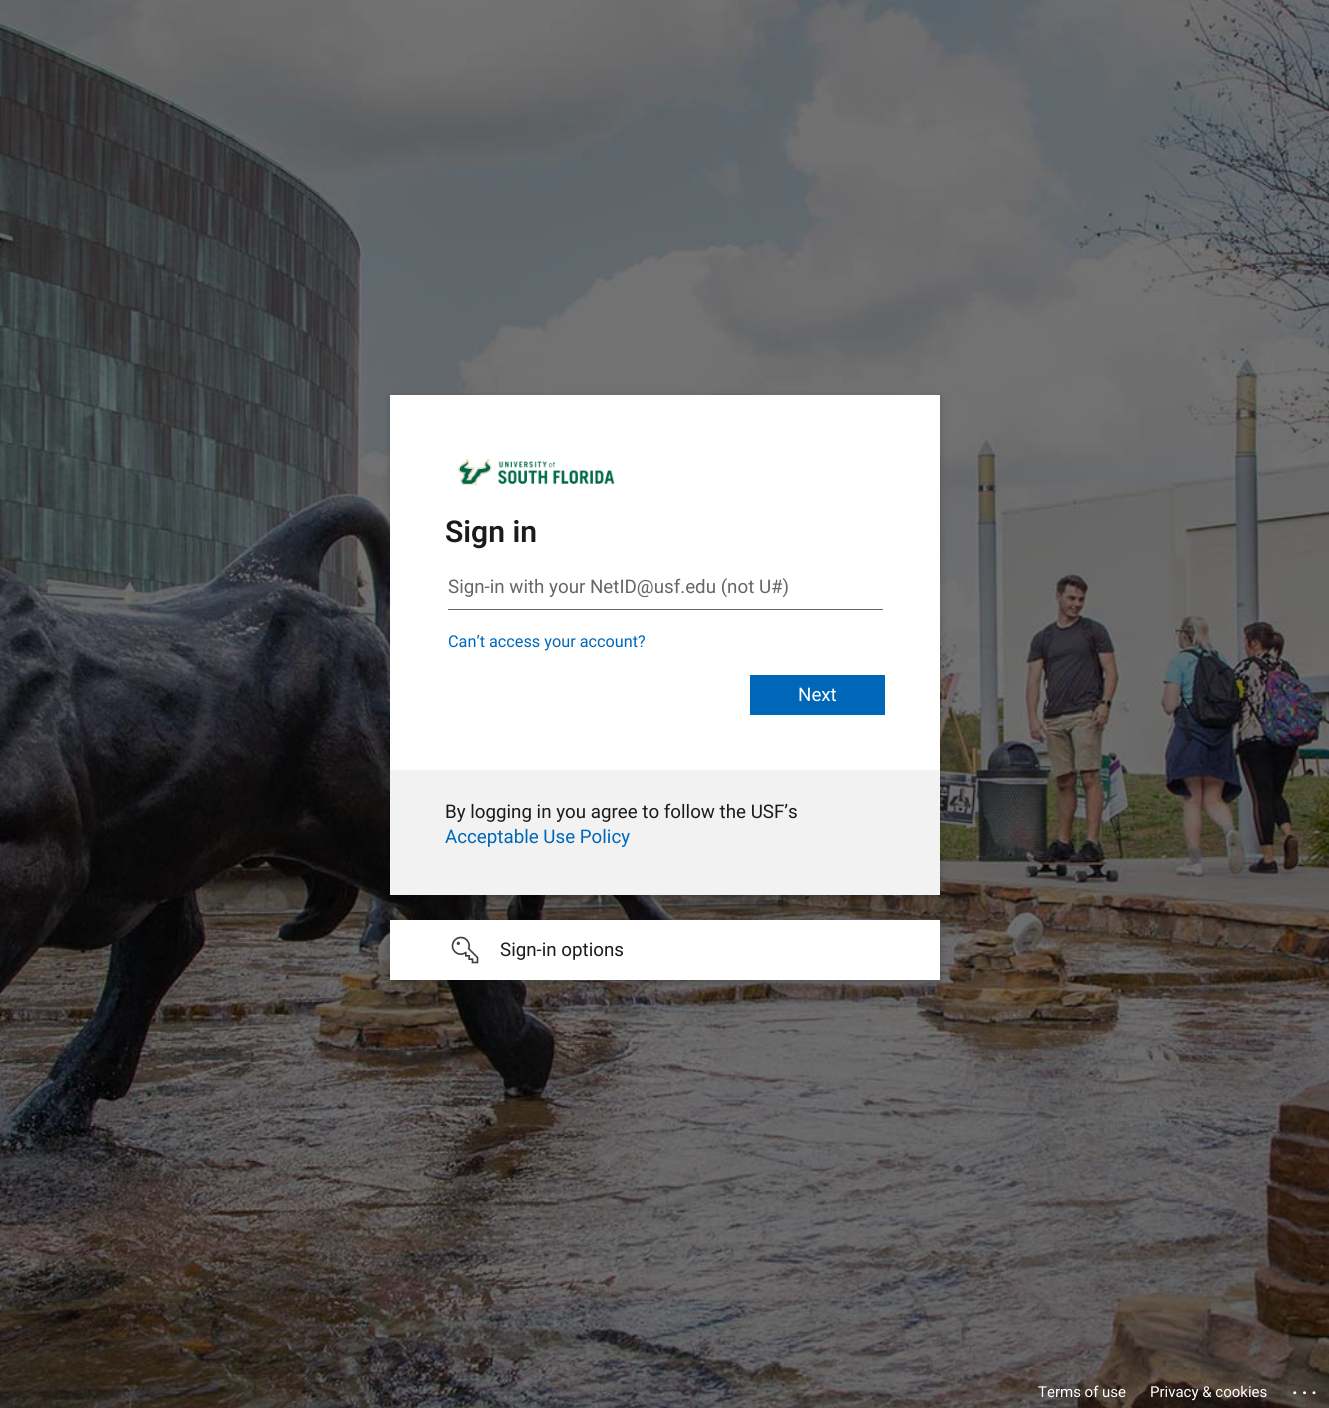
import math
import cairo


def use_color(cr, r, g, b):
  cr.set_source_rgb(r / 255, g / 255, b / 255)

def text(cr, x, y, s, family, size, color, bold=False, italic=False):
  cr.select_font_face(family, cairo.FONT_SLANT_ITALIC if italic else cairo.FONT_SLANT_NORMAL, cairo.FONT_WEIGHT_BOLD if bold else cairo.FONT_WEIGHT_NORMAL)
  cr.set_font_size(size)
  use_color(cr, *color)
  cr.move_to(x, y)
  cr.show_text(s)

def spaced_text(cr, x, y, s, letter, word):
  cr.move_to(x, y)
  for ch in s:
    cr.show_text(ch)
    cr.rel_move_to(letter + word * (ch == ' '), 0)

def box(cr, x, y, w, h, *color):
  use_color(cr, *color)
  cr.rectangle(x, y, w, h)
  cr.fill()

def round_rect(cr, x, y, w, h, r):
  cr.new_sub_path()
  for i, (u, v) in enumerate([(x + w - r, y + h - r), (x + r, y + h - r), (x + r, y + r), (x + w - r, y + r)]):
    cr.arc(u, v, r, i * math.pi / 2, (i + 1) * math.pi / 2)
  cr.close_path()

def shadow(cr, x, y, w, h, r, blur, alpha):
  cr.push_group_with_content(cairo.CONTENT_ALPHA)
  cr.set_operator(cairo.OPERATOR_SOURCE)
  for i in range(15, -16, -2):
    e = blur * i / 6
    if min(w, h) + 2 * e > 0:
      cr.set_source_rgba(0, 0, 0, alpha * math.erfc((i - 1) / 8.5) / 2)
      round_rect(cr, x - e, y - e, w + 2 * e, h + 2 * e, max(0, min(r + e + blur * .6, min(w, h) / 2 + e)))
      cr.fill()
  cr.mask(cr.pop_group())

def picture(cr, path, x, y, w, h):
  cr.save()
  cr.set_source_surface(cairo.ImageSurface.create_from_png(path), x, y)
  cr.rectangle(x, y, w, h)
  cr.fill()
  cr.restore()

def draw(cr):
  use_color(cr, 255, 255, 255)
  cr.paint()
  picture(cr, "img_01.png", 0, 0, 1329, 1408)
  use_color(cr, 0, 0, 0)
  shadow(cr, 390, 398, 550, 500, 0, 4, 0.2)
  box(cr, 390, 395, 550, 375, 255, 255, 255)
  picture(cr, "img_02.png", 458, 458, 157, 28)
  box(cr, 448, 609, 435, 1, 102, 102, 102)
  box(cr, 750, 675, 135, 40, 0, 103, 184)
  box(cr, 390, 770, 550, 125, 242, 242, 242)
  use_color(cr, 0, 0, 0)
  shadow(cr, 390, 923, 550, 60, 0, 4, 0.2)
  box(cr, 390, 920, 550, 60, 255, 255, 255)
  picture(cr, "img_03.png", 451, 936, 28, 28)
  text(cr, 445, 542, "Sign in", "Roboto SemiBold", 30, (27, 27, 27))
  text(cr, 448, 593, "Sign-in with your NetID@usf.edu (not U#)", "Roboto", 18.75, (102, 102, 102))
  text(cr, 448, 647, "Can’t access your account?", "Roboto", 16.25, (0, 103, 184))
  text(cr, 798, 701, "Next", "Roboto", 18.75, (255, 255, 255))
  text(cr, 445, 818, "By logging in you agree to follow the USF’s", "Roboto", 18.75, (27, 27, 27))
  text(cr, 445, 843, "Acceptable Use Policy", "Roboto", 18.75, (0, 103, 184))
  text(cr, 500, 956, "Sign-in options", "Roboto", 18.75, (27, 27, 27))
  text(cr, 1038, 1397, "Terms of use", "Roboto", 15, (255, 255, 255))
  text(cr, 1150, 1397, "Privacy & cookies", "Roboto", 15, (255, 255, 255))
  cr.select_font_face("Roboto SemiBold")
  cr.set_font_size(20)
  spaced_text(cr, 1292, 1394, "...", 4, 0)


surface = cairo.ImageSurface(cairo.FORMAT_RGB24, 1329, 1408)
cr = cairo.Context(surface)
options = cairo.FontOptions()
options.set_hint_metrics(cairo.HINT_METRICS_OFF)
options.set_hint_style(cairo.HINT_STYLE_NONE)
cr.set_font_options(options)
cr.set_miter_limit(4)
draw(cr)
surface.write_to_png("out.png")
